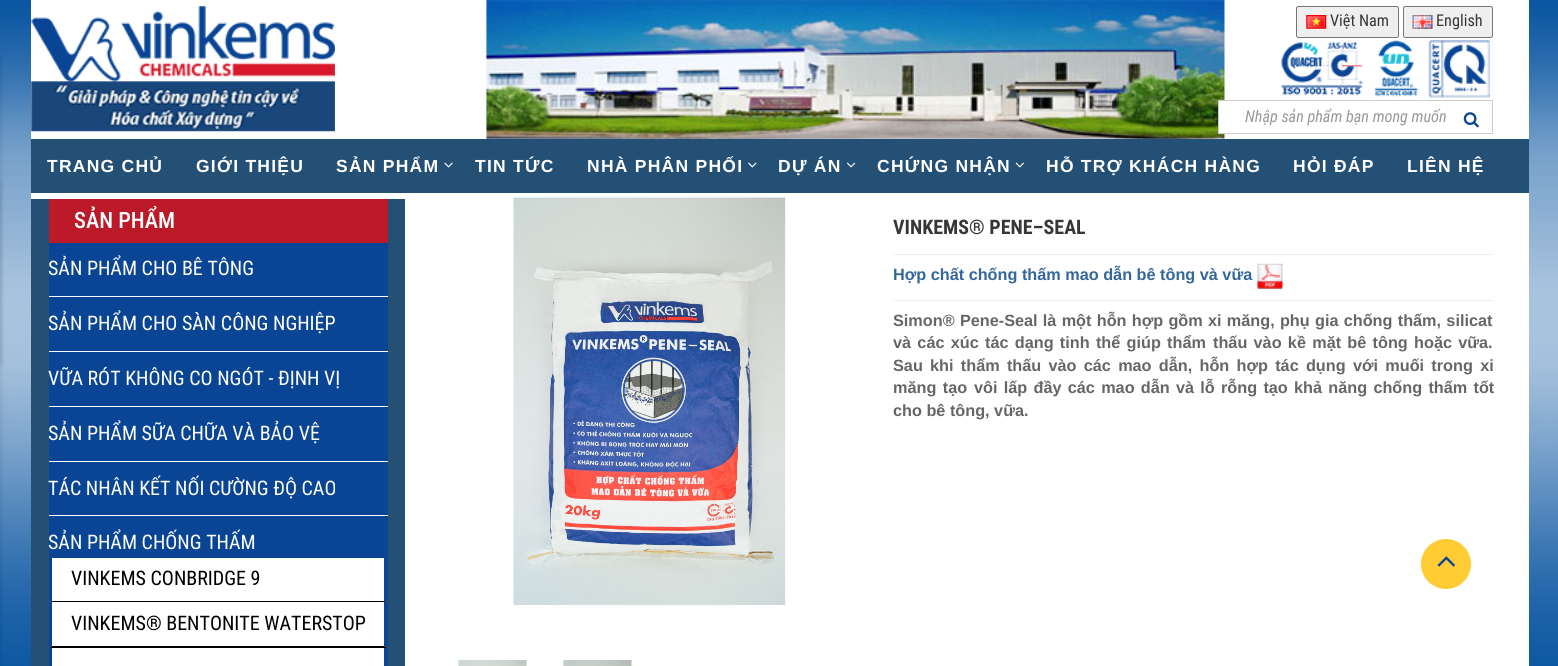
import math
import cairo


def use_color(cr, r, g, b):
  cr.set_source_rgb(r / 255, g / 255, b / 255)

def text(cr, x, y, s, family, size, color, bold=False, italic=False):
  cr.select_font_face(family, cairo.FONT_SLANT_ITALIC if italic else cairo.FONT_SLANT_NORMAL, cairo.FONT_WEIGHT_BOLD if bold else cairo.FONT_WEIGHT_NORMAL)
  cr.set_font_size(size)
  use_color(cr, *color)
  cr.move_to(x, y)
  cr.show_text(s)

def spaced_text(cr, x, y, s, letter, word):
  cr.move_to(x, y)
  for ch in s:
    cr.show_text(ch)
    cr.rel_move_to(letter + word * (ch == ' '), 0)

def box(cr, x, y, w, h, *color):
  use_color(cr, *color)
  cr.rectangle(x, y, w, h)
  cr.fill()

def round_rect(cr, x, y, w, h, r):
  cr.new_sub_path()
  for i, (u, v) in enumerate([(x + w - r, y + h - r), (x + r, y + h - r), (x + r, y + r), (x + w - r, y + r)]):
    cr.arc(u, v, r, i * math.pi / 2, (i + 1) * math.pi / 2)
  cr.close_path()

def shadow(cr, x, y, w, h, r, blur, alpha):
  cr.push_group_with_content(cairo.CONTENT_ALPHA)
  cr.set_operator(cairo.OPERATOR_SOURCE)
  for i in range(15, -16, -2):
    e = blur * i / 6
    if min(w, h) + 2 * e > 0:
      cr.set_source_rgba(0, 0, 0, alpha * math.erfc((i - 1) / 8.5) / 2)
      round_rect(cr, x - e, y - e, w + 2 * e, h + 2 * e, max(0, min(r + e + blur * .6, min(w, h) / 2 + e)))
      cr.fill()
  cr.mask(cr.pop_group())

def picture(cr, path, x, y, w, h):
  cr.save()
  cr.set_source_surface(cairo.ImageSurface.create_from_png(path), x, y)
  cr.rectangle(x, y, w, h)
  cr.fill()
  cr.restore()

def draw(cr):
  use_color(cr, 255, 255, 255)
  cr.paint()
  picture(cr, "img_01.png", 0, 0, 1558, 666)
  box(cr, 31, 0, 1498, 666, 255, 255, 255)
  picture(cr, "img_02.png", 486, 0, 744, 139)
  picture(cr, "img_03.png", 31, 6, 304, 126)
  use_color(cr, 239, 239, 239)
  round_rect(cr, 1296.5, 6.5, 102, 31, 2)
  cr.fill_preserve()
  use_color(cr, 118, 118, 118)
  cr.set_line_width(1)
  cr.stroke()
  picture(cr, "img_04.png", 1306, 15, 21, 14)
  use_color(cr, 239, 239, 239)
  round_rect(cr, 1403.5, 6.5, 89, 31, 2)
  cr.fill_preserve()
  use_color(cr, 118, 118, 118)
  cr.stroke()
  picture(cr, "img_05.png", 1412, 15, 21, 14)
  picture(cr, "img_06.png", 1281, 39, 210, 59)
  box(cr, 1219, 101, 11, 32, 255, 255, 255)
  cr.rectangle(1218.5, 100.5, 274, 33)
  use_color(cr, 204, 204, 204)
  cr.stroke()
  picture(cr, "img_07.png", 1463, 112, 16, 16)
  box(cr, 31, 139, 1498, 54, 36, 80, 117)
  picture(cr, "img_08.png", 444, 162, 9, 6)
  picture(cr, "img_09.png", 748, 162, 9, 6)
  picture(cr, "img_10.png", 846, 162, 10, 6)
  picture(cr, "img_11.png", 1015, 162, 9, 6)
  use_color(cr, 0, 0, 0)
  shadow(cr, -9, 58, 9, 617, 0, 3, 0.15)
  shadow(cr, -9, 183, 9, 180, 0, 3, 0.15)
  box(cr, 31, 199, 374, 467, 36, 80, 117)
  box(cr, 49, 199, 339, 44, 189, 26, 41)
  box(cr, 49, 243, 339, 315, 10, 69, 149)
  box(cr, 49, 296, 339, 1, 255, 255, 255)
  box(cr, 49, 351, 339, 1, 255, 255, 255)
  box(cr, 49, 406, 339, 1, 255, 255, 255)
  box(cr, 49, 461, 339, 1, 255, 255, 255)
  box(cr, 49, 515, 339, 1, 255, 255, 255)
  box(cr, 49, 558, 339, 108, 255, 255, 255)
  use_color(cr, 10, 69, 149)
  cr.new_path()
  cr.move_to(388, 558)
  cr.line_to(388, 602)
  cr.line_to(384, 601)
  cr.line_to(384, 558)
  cr.close_path()
  cr.fill()
  use_color(cr, 0, 0, 0)
  cr.new_path()
  cr.move_to(388, 602)
  cr.line_to(49, 602)
  cr.line_to(52, 601)
  cr.line_to(384, 601)
  cr.close_path()
  cr.fill()
  use_color(cr, 10, 69, 149)
  cr.new_path()
  cr.move_to(49, 602)
  cr.line_to(49, 558)
  cr.line_to(52, 558)
  cr.line_to(52, 601)
  cr.close_path()
  cr.fill()
  cr.new_path()
  cr.move_to(388, 602)
  cr.line_to(388, 648)
  cr.line_to(384, 646)
  cr.line_to(384, 602)
  cr.close_path()
  cr.fill()
  use_color(cr, 0, 0, 0)
  cr.new_path()
  cr.move_to(388, 648)
  cr.line_to(49, 648)
  cr.line_to(52, 646)
  cr.line_to(384, 646)
  cr.close_path()
  cr.fill()
  use_color(cr, 10, 69, 149)
  cr.new_path()
  cr.move_to(49, 648)
  cr.line_to(49, 602)
  cr.line_to(52, 602)
  cr.line_to(52, 646)
  cr.close_path()
  cr.fill()
  cr.new_path()
  cr.move_to(388, 648)
  cr.line_to(388, 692)
  cr.line_to(384, 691)
  cr.line_to(384, 648)
  cr.close_path()
  cr.fill()
  cr.new_path()
  cr.move_to(49, 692)
  cr.line_to(49, 648)
  cr.line_to(52, 648)
  cr.line_to(52, 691)
  cr.close_path()
  cr.fill()
  picture(cr, "img_12.png", 513, 197, 273, 408)
  picture(cr, "img_13.png", 458, 660, 69, 6)
  picture(cr, "img_14.png", 563, 660, 70, 6)
  box(cr, 894, 254, 599, 1, 238, 238, 238)
  picture(cr, "img_15.png", 1257, 263, 26, 26)
  box(cr, 894, 300, 599, 1, 238, 238, 238)
  use_color(cr, 255, 204, 51)
  cr.arc(1446, 564, 25, 0, 2 * math.pi)
  cr.fill()
  picture(cr, "img_16.png", 1437, 556, 18, 11)
  text(cr, 1330, 26, "Việt Nam", "Roboto Condensed", 16.25, (56, 55, 55))
  text(cr, 1436, 26, "English", "Roboto Condensed", 16.25, (56, 55, 55))
  text(cr, 1245, 122, "Nhập sản phẩm bạn mong muốn", "Roboto Condensed", 16.25, (153, 153, 153), italic=True)
  cr.select_font_face("Liberation Sans", cairo.FONT_SLANT_NORMAL, cairo.FONT_WEIGHT_BOLD)
  cr.set_font_size(17.5)
  use_color(cr, 255, 255, 255)
  spaced_text(cr, 47, 172, "TRANG CHỦ", 1.25, 0)
  spaced_text(cr, 196, 172, "GIỚI THIỆU", 1.25, 0)
  spaced_text(cr, 336, 172, "SẢN PHẨM", 1.25, 0)
  spaced_text(cr, 475, 172, "TIN TỨC", 1.25, 0)
  spaced_text(cr, 587, 172, "NHÀ PHÂN PHỐI", 1.25, 0)
  spaced_text(cr, 778, 172, "DỰ ÁN", 1.25, 0)
  spaced_text(cr, 877, 172, "CHỨNG NHẬN", 1.25, 0)
  spaced_text(cr, 1046, 172, "HỖ TRỢ KHÁCH HÀNG", 1.25, 0)
  spaced_text(cr, 1293, 172, "HỎI ĐÁP", 1.25, 0)
  spaced_text(cr, 1407, 172, "LIÊN HỆ", 1.25, 0)
  text(cr, 74, 228, "SẢN PHẨM", "Roboto Condensed Medium", 22.5, (255, 255, 255))
  text(cr, 48, 275, "SẢN PHẨM CHO BÊ TÔNG", "Roboto Condensed", 20, (255, 255, 255))
  text(cr, 48, 330, "SẢN PHẨM CHO SÀN CÔNG NGHIỆP", "Roboto Condensed", 20, (255, 255, 255))
  text(cr, 48, 385, "VỮA RÓT KHÔNG CO NGÓT - ĐỊNH VỊ", "Roboto Condensed", 20, (255, 255, 255))
  text(cr, 48, 440, "SẢN PHẨM SỮA CHỮA VÀ BẢO VỆ", "Roboto Condensed", 20, (255, 255, 255))
  text(cr, 48, 495, "TÁC NHÂN KẾT NỐI CƯỜNG ĐỘ CAO", "Roboto Condensed", 20, (255, 255, 255))
  text(cr, 48, 549, "SẢN PHẨM CHỐNG THẤM", "Roboto Condensed", 20, (255, 255, 255))
  text(cr, 71, 585, "VINKEMS CONBRIDGE 9", "Roboto Condensed", 20, (0, 0, 0))
  text(cr, 71, 630, "VINKEMS® BENTONITE WATERSTOP", "Roboto Condensed", 20, (0, 0, 0))
  text(cr, 893, 234, "VINKEMS® PENE–SEAL", "Roboto Condensed", 20, (56, 55, 55), bold=True)
  text(cr, 893, 280, "Hợp chất chống thấm mao dẫn bê tông và vữa", "Liberation Sans", 16.25, (51, 102, 153), bold=True)
  use_color(cr, 102, 102, 102)
  spaced_text(cr, 893, 326, "Simon® Pene-Seal là một hỗn hợp gồm xi măng, phụ gia chống thấm, silicat", 0, 0.75)
  spaced_text(cr, 893, 348, "và các xúc tác dạng tinh thể giúp thẩm", 0, 1.75)
  spaced_text(cr, 1213, 348, "thấu vào kề mặt bê tông hoặc vữa.", 0, 1.75)
  spaced_text(cr, 893, 371, "Sau khi thẩm thấu vào các mao dẫn, hỗn hợp tác dụng với muối trong xi", 0, 2.75)
  spaced_text(cr, 893, 393, "măng tạo", 0, 2)
  spaced_text(cr, 974, 393, "vôi lấp đầy các mao dẫn và lỗ rỗng tạo khả năng chống thấm tốt", 0, 1.75)
  text(cr, 893, 416, "cho bê tông, vữa.", "Liberation Sans", 16.25, (102, 102, 102), bold=True)


surface = cairo.ImageSurface(cairo.FORMAT_RGB24, 1558, 666)
cr = cairo.Context(surface)
options = cairo.FontOptions()
options.set_hint_metrics(cairo.HINT_METRICS_OFF)
options.set_hint_style(cairo.HINT_STYLE_NONE)
cr.set_font_options(options)
cr.set_miter_limit(4)
draw(cr)
surface.write_to_png("out.png")
